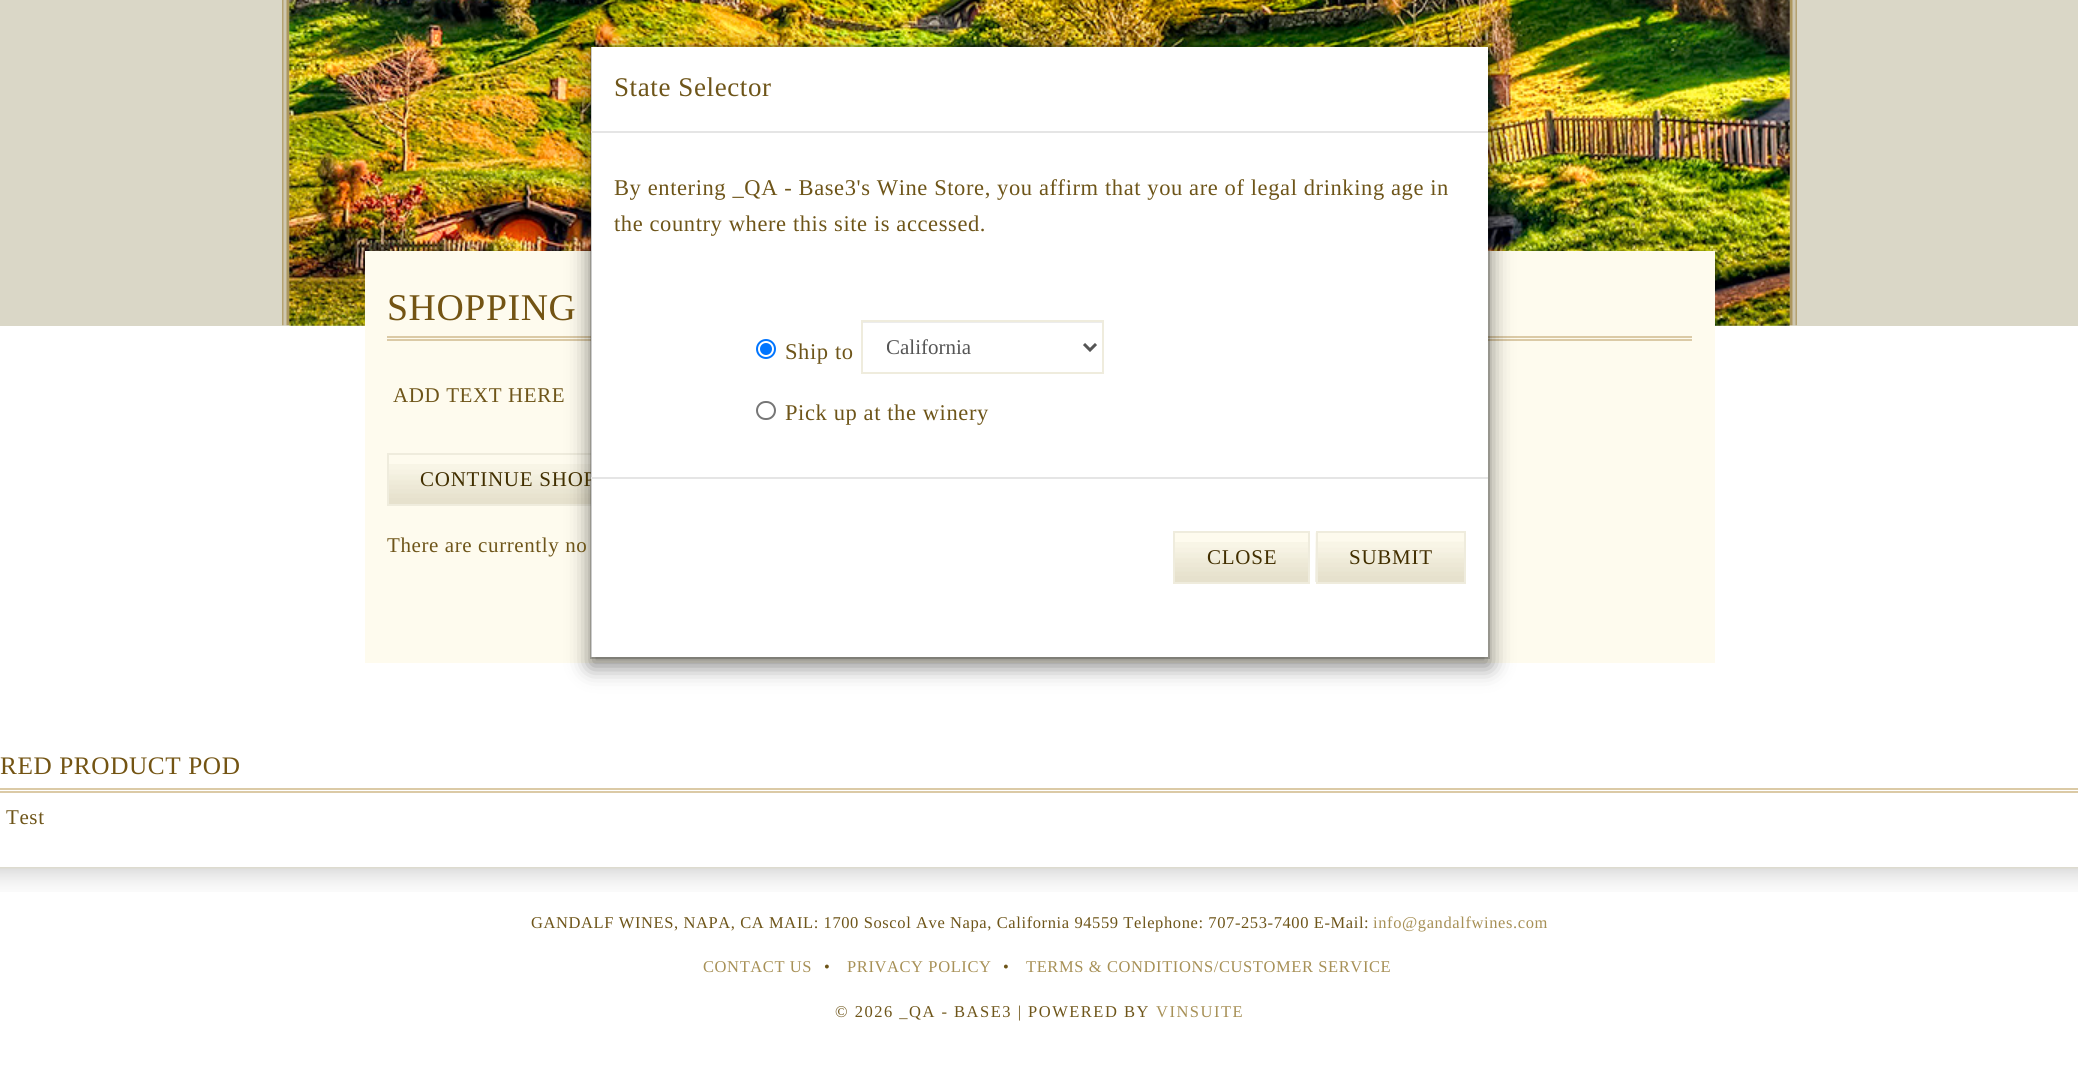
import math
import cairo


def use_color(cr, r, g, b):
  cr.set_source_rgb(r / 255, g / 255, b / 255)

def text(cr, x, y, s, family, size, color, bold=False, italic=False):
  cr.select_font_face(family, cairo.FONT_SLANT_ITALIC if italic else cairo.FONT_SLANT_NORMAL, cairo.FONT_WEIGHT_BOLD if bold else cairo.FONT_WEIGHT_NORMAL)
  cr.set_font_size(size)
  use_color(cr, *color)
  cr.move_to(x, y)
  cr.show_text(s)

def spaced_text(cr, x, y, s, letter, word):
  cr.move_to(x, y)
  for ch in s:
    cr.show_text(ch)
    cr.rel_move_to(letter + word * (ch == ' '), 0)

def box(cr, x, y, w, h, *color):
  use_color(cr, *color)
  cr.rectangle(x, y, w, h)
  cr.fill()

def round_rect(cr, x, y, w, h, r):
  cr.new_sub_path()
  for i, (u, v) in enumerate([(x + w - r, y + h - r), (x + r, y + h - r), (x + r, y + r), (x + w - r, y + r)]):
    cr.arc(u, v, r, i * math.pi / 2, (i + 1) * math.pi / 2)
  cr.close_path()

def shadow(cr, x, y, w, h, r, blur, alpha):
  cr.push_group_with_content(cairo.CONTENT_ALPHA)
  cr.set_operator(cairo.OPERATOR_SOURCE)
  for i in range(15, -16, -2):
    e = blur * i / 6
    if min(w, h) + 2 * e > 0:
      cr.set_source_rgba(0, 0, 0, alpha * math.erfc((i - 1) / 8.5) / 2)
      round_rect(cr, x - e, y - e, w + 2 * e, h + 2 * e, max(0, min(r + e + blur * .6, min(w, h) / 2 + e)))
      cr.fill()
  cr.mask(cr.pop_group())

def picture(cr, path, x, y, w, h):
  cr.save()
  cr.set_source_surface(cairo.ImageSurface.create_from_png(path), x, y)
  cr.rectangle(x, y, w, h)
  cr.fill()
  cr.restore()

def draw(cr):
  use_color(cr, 255, 255, 255)
  cr.paint()
  box(cr, 0, 0, 2078, 326, 218, 215, 199)
  picture(cr, "img_01.png", 282, 0, 1515, 326)
  picture(cr, "img_02.png", 289, 0, 1501, 326)
  box(cr, 365, 251, 1350, 412, 254, 251, 238)
  box(cr, 387, 336, 1305, 2, 219, 202, 166)
  box(cr, 387, 339, 1305, 2, 219, 202, 166)
  picture(cr, "img_03.png", 389, 464, 202, 40)
  cr.rectangle(388, 454, 292, 51)
  use_color(cr, 239, 236, 221)
  cr.stroke()
  use_color(cr, 0, 0, 0)
  shadow(cr, 590, 53, 900, 613, 0, 11, 0.5)
  box(cr, 0, 788, 2078, 2, 219, 202, 166)
  box(cr, 0, 791, 2078, 2, 219, 202, 166)
  picture(cr, "img_06.png", 0, 867, 2078, 25)
  cr.select_font_face("Liberation Serif")
  cr.set_font_size(37.75)
  use_color(cr, 115, 84, 19)
  spaced_text(cr, 387, 320, "SHOPPING", 0.6, 0)
  cr.set_font_size(21)
  use_color(cr, 110, 85, 25)
  spaced_text(cr, 393, 402, "ADD TEXT HERE", 0.6, 0)
  use_color(cr, 66, 47, 0)
  spaced_text(cr, 420, 486, "CONTINUE SHOP", 0.75, 0)
  use_color(cr, 110, 85, 25)
  spaced_text(cr, 387, 552, "There are currently no", 0.6, 0)
  box(cr, 591, 47, 897, 610, 255, 255, 255)
  cr.rectangle(591, 46, 898, 612)
  cr.set_source_rgba(0, 0, 0, 0.2)
  cr.stroke()
  box(cr, 591, 131, 897, 2, 229, 229, 229)
  cr.set_font_size(27)
  use_color(cr, 110, 85, 25)
  spaced_text(cr, 614, 96, "State Selector", 0.6, 0)
  cr.set_font_size(22.5)
  spaced_text(cr, 614, 195, "By entering _QA - Base3's Wine Store, you affirm that you are of legal drinking age in", 0.6, 0)
  spaced_text(cr, 614, 231, "the country where this site is accessed.", 0.6, 0)
  cr.new_path()
  cr.arc(766, 349, 9, 0, 2 * math.pi)
  use_color(cr, 0, 117, 255)
  cr.stroke()
  cr.arc(766, 349, 6, 0, 2 * math.pi)
  cr.fill()
  use_color(cr, 110, 85, 25)
  spaced_text(cr, 785, 359, "Ship to", 0.6, 0)
  box(cr, 863, 322, 240, 1, 236, 236, 236)
  cr.rectangle(862, 321, 241, 52)
  use_color(cr, 239, 236, 221)
  cr.stroke()
  cr.new_path()
  cr.move_to(1084, 344)
  cr.line_to(1090, 350)
  cr.line_to(1096, 344)
  use_color(cr, 85, 85, 85)
  cr.set_line_width(3)
  cr.stroke()
  cr.save()
  cr.rectangle(887, 335, 174, 25)
  cr.clip()
  text(cr, 886, 354, "California", "Liberation Serif", 21, (85, 85, 85))
  cr.restore()
  round_rect(cr, 757, 402, 18, 17, 8.5)
  use_color(cr, 118, 118, 118)
  cr.set_line_width(2)
  cr.stroke()
  use_color(cr, 110, 85, 25)
  spaced_text(cr, 785, 420, "Pick up at the winery", 0.6, 0)
  box(cr, 591, 477, 897, 2, 229, 229, 229)
  box(cr, 1175, 533, 133, 9, 254, 251, 238)
  picture(cr, "img_04.png", 1175, 542, 133, 40)
  cr.rectangle(1174, 532, 135, 51)
  use_color(cr, 239, 236, 221)
  cr.stroke()
  cr.set_font_size(21)
  use_color(cr, 66, 47, 0)
  spaced_text(cr, 1207, 564, "CLOSE", 0.75, 0)
  picture(cr, "img_05.png", 1315, 532, 149, 50)
  cr.rectangle(1317, 532, 148, 51)
  use_color(cr, 239, 236, 221)
  cr.stroke()
  use_color(cr, 66, 47, 0)
  spaced_text(cr, 1349, 564, "SUBMIT", 0.75, 0)
  cr.set_font_size(25.25)
  use_color(cr, 115, 84, 19)
  spaced_text(cr, 0, 774, "RED PRODUCT POD", 0.6, 0)
  cr.set_font_size(21)
  use_color(cr, 110, 85, 25)
  spaced_text(cr, 6, 824, "Test", 0.6, 0)
  cr.set_font_size(16.5)
  spaced_text(cr, 531, 928, "GANDALF WINES, NAPA, CA MAIL: 1700 Soscol Ave Napa, California 94559 Telephone: 707-253-7400 E-Mail:", 0.6, 0)
  use_color(cr, 167, 144, 86)
  spaced_text(cr, 1373, 928, "info@gandalfwines.com", 0.6, 0)
  spaced_text(cr, 703, 972, "CONTACT US", 0.6, 0)
  use_color(cr, 110, 85, 25)
  spaced_text(cr, 824, 972, "•", 0.6, 0)
  use_color(cr, 167, 144, 86)
  spaced_text(cr, 847, 972, "PRIVACY POLICY", 0.6, 0)
  use_color(cr, 110, 85, 25)
  spaced_text(cr, 1003, 972, "•", 0.6, 0)
  use_color(cr, 167, 144, 86)
  spaced_text(cr, 1026, 972, "TERMS & CONDITIONS/CUSTOMER SERVICE", 0.6, 0)
  use_color(cr, 110, 85, 25)
  spaced_text(cr, 835, 1017, "© 2026 _QA - BASE3 | POWERED BY", 1.5, 0)
  use_color(cr, 167, 144, 86)
  spaced_text(cr, 1156, 1017, "VINSUITE", 1.5, 0)


surface = cairo.ImageSurface(cairo.FORMAT_RGB24, 2078, 1066)
cr = cairo.Context(surface)
options = cairo.FontOptions()
options.set_hint_metrics(cairo.HINT_METRICS_OFF)
options.set_hint_style(cairo.HINT_STYLE_NONE)
cr.set_font_options(options)
cr.set_miter_limit(4)
draw(cr)
surface.write_to_png("out.png")
